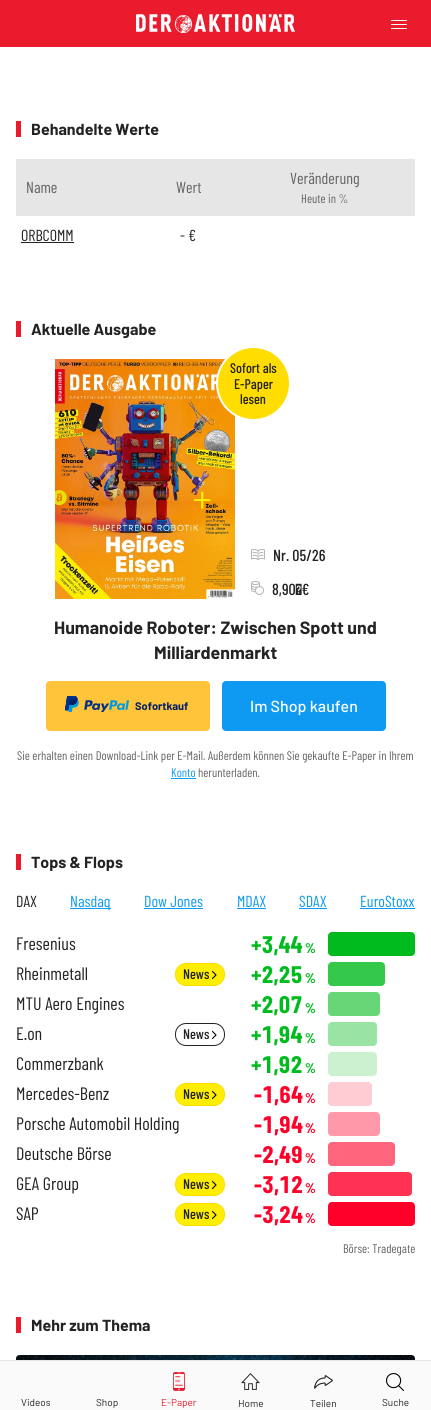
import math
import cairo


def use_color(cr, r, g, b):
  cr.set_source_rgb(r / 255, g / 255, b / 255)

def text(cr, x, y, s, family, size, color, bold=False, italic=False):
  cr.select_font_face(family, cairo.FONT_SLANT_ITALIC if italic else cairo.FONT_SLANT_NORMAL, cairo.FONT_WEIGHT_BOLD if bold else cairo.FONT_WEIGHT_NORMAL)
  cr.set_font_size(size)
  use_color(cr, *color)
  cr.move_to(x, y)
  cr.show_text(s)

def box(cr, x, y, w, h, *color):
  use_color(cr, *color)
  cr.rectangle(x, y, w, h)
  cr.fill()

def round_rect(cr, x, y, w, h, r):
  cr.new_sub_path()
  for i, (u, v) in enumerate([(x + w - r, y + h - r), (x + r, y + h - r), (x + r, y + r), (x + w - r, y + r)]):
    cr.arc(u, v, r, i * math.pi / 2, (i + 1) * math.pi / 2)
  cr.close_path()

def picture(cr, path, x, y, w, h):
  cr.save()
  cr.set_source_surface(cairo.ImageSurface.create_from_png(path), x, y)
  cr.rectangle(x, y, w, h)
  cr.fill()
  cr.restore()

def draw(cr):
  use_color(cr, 255, 255, 255)
  cr.paint()
  box(cr, 16, 121, 5, 16, 233, 27, 45)
  box(cr, 16, 159, 399, 57, 230, 230, 230)
  box(cr, 21, 242, 53, 1, 35, 35, 35)
  box(cr, 16, 321, 5, 16, 233, 27, 45)
  picture(cr, "img_01.png", 55, 359, 180, 240)
  use_color(cr, 255, 221, 0)
  cr.arc(253.5, 383.5, 36.5, 0, 2 * math.pi)
  cr.fill_preserve()
  use_color(cr, 255, 255, 255)
  cr.stroke()
  picture(cr, "img_02.png", 251, 549, 14, 11)
  picture(cr, "img_03.png", 251, 581, 13, 14)
  use_color(cr, 255, 196, 57)
  round_rect(cr, 46, 681, 164, 50, 4)
  cr.fill()
  picture(cr, "img_04.png", 65, 696, 64, 16)
  use_color(cr, 14, 154, 243)
  round_rect(cr, 222, 681, 164, 50, 4)
  cr.fill()
  box(cr, 171, 778, 25, 1, 14, 154, 243)
  box(cr, 16, 854, 5, 16, 233, 27, 45)
  box(cr, 70, 908, 41, 1, 14, 154, 243)
  box(cr, 144, 908, 59, 1, 14, 154, 243)
  box(cr, 237, 908, 29, 1, 14, 154, 243)
  box(cr, 299, 908, 28, 1, 14, 154, 243)
  box(cr, 360, 908, 55, 1, 14, 154, 243)
  use_color(cr, 0, 187, 29)
  round_rect(cr, 328, 932, 87, 24, 4)
  cr.fill()
  use_color(cr, 255, 238, 0)
  round_rect(cr, 175.5, 963.5, 49, 22, 10.5)
  cr.fill_preserve()
  use_color(cr, 255, 221, 0)
  cr.set_line_width(1)
  cr.stroke()
  cr.new_path()
  cr.move_to(212.5, 971.5)
  cr.line_to(216, 975)
  cr.line_to(212.5, 978.5)
  use_color(cr, 0, 0, 0)
  cr.set_line_width(1.1)
  cr.set_line_cap(cairo.LINE_CAP_ROUND)
  cr.set_line_join(cairo.LINE_JOIN_ROUND)
  cr.stroke()
  use_color(cr, 51, 200, 74)
  round_rect(cr, 328, 962, 57, 24, 4)
  cr.fill()
  use_color(cr, 102, 214, 119)
  round_rect(cr, 328, 992, 52, 24, 4)
  cr.fill()
  round_rect(cr, 175.5, 1023.5, 49, 22, 10.5)
  use_color(cr, 35, 35, 35)
  cr.set_line_width(1)
  cr.set_line_cap(cairo.LINE_CAP_BUTT)
  cr.set_line_join(cairo.LINE_JOIN_MITER)
  cr.stroke()
  cr.new_path()
  cr.move_to(212.5, 1031.5)
  cr.line_to(216, 1035)
  cr.line_to(212.5, 1038.5)
  use_color(cr, 0, 0, 0)
  cr.set_line_width(1.1)
  cr.set_line_cap(cairo.LINE_CAP_ROUND)
  cr.set_line_join(cairo.LINE_JOIN_ROUND)
  cr.stroke()
  use_color(cr, 153, 228, 164)
  round_rect(cr, 328, 1022, 49, 24, 4)
  cr.fill()
  use_color(cr, 204, 241, 209)
  round_rect(cr, 328, 1052, 49, 24, 4)
  cr.fill()
  use_color(cr, 255, 238, 0)
  round_rect(cr, 175.5, 1083.5, 49, 22, 10.5)
  cr.fill_preserve()
  use_color(cr, 255, 221, 0)
  cr.set_line_width(1)
  cr.set_line_cap(cairo.LINE_CAP_BUTT)
  cr.set_line_join(cairo.LINE_JOIN_MITER)
  cr.stroke()
  cr.new_path()
  cr.move_to(212.5, 1091.5)
  cr.line_to(216, 1095)
  cr.line_to(212.5, 1098.5)
  use_color(cr, 0, 0, 0)
  cr.set_line_width(1.1)
  cr.set_line_cap(cairo.LINE_CAP_ROUND)
  cr.set_line_join(cairo.LINE_JOIN_ROUND)
  cr.stroke()
  use_color(cr, 255, 204, 212)
  round_rect(cr, 328, 1082, 44, 24, 4)
  cr.fill()
  use_color(cr, 255, 153, 169)
  round_rect(cr, 328, 1112, 52, 24, 4)
  cr.fill()
  use_color(cr, 255, 102, 126)
  round_rect(cr, 328, 1142, 67, 24, 4)
  cr.fill()
  use_color(cr, 255, 238, 0)
  round_rect(cr, 175.5, 1173.5, 49, 22, 10.5)
  cr.fill_preserve()
  use_color(cr, 255, 221, 0)
  cr.set_line_width(1)
  cr.set_line_cap(cairo.LINE_CAP_BUTT)
  cr.set_line_join(cairo.LINE_JOIN_MITER)
  cr.stroke()
  cr.new_path()
  cr.move_to(212.5, 1181.5)
  cr.line_to(216, 1185)
  cr.line_to(212.5, 1188.5)
  use_color(cr, 0, 0, 0)
  cr.set_line_width(1.1)
  cr.set_line_cap(cairo.LINE_CAP_ROUND)
  cr.set_line_join(cairo.LINE_JOIN_ROUND)
  cr.stroke()
  use_color(cr, 255, 50, 84)
  round_rect(cr, 328, 1172, 84, 24, 4)
  cr.fill()
  use_color(cr, 255, 238, 0)
  round_rect(cr, 175.5, 1203.5, 49, 22, 10.5)
  cr.fill_preserve()
  use_color(cr, 255, 221, 0)
  cr.set_line_width(1)
  cr.set_line_cap(cairo.LINE_CAP_BUTT)
  cr.set_line_join(cairo.LINE_JOIN_MITER)
  cr.stroke()
  cr.new_path()
  cr.move_to(212.5, 1211.5)
  cr.line_to(216, 1215)
  cr.line_to(212.5, 1218.5)
  use_color(cr, 0, 0, 0)
  cr.set_line_width(1.1)
  cr.set_line_cap(cairo.LINE_CAP_ROUND)
  cr.set_line_join(cairo.LINE_JOIN_ROUND)
  cr.stroke()
  use_color(cr, 255, 0, 41)
  round_rect(cr, 328, 1202, 87, 24, 4)
  cr.fill()
  box(cr, 16, 1317, 5, 16, 233, 27, 45)
  picture(cr, "img_05.png", 16, 1355, 399, 5)
  box(cr, 0, 0, 431, 47, 233, 27, 45)
  picture(cr, "img_06.png", 136, 14, 159, 19)
  box(cr, 0, 1361, 431, 49, 250, 250, 250)
  box(cr, 0, 1360, 431, 1, 230, 230, 230)
  use_color(cr, 255, 255, 255)
  round_rect(cr, 391, 24, 16, 1, 0.5)
  cr.fill()
  round_rect(cr, 391, 20, 16, 1, 0.5)
  cr.fill()
  round_rect(cr, 391, 28, 16, 1, 0.5)
  cr.fill()
  picture(cr, "img_07.png", 173, 1372, 12, 19)
  picture(cr, "img_08.png", 241, 1373, 19, 17)
  picture(cr, "img_09.png", 314, 1375, 19, 14)
  picture(cr, "img_10.png", 386, 1373, 18, 18)
  text(cr, 31, 135, "Behandelte Werte", "Barlow", 16, (35, 35, 35), bold=True)
  text(cr, 26, 193, "Name", "Barlow Condensed", 16, (100, 100, 100))
  text(cr, 176, 193, "Wert", "Barlow Condensed", 16, (100, 100, 100))
  text(cr, 290, 184, "Veränderung", "Barlow Condensed", 16, (100, 100, 100))
  text(cr, 301, 203, "Heute in %", "Barlow Condensed", 12.45, (100, 100, 100))
  text(cr, 21, 241, "ORBCOMM", "Barlow Condensed", 16, (35, 35, 35))
  text(cr, 180, 241, "- €", "Barlow Condensed", 16, (35, 35, 35))
  text(cr, 31, 335, "Aktuelle Ausgabe", "Barlow", 16, (35, 35, 35), bold=True)
  text(cr, 230, 373, "Sofort als", "Barlow Condensed Medium", 14, (35, 35, 35))
  text(cr, 234, 389, "E-Paper", "Barlow Condensed Medium", 14, (35, 35, 35))
  text(cr, 240, 404, "lesen", "Barlow Condensed Medium", 14, (35, 35, 35))
  text(cr, 54, 634, "Humanoide Roboter: Zwischen Spott und", "Barlow", 17.75, (35, 35, 35), bold=True)
  text(cr, 154, 659, "Milliardenmarkt", "Barlow", 17.75, (35, 35, 35), bold=True)
  text(cr, 273, 561, "Nr. 05/26", "Barlow Condensed Medium", 16, (35, 35, 35))
  text(cr, 272, 595, "8,90 €", "Barlow Condensed Medium", 16, (35, 35, 35))
  text(cr, 135, 710, "Sofortkauf", "Barlow", 11, (2, 33, 102), bold=True)
  text(cr, 250, 712, "Im Shop kaufen", "Barlow Medium", 16, (255, 255, 255))
  text(cr, 17, 760, "Sie erhalten einen Download-Link per E-Mail. Außerdem können Sie gekaufte E-Paper in Ihrem", "Barlow Condensed", 12.45, (100, 100, 100))
  text(cr, 171, 777, "Konto", "Barlow Condensed", 12.45, (14, 154, 243))
  text(cr, 198, 777, "herunterladen.", "Barlow Condensed", 12.45, (100, 100, 100))
  text(cr, 31, 868, "Tops & Flops", "Barlow", 16, (35, 35, 35), bold=True)
  text(cr, 16, 907, "DAX", "Barlow Condensed", 16, (35, 35, 35))
  text(cr, 70, 907, "Nasdaq", "Barlow Condensed", 16, (14, 154, 243))
  text(cr, 144, 907, "Dow Jones", "Barlow Condensed", 16, (14, 154, 243))
  text(cr, 237, 907, "MDAX", "Barlow Condensed", 16, (14, 154, 243))
  text(cr, 299, 907, "SDAX", "Barlow Condensed", 16, (14, 154, 243))
  text(cr, 360, 907, "EuroStoxx", "Barlow Condensed", 16, (14, 154, 243))
  text(cr, 16, 950, "Fresenius", "Barlow Condensed", 18, (35, 35, 35))
  text(cr, 251, 953, "+3,44", "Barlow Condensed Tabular", 24, (0, 187, 29), bold=True)
  text(cr, 305, 953, "%", "Barlow Condensed", 14, (0, 187, 29), bold=True)
  text(cr, 16, 980, "Rheinmetall", "Barlow Condensed", 18, (35, 35, 35))
  text(cr, 183, 979, "News", "Barlow Condensed Medium", 14, (35, 35, 35))
  text(cr, 251, 983, "+2,25", "Barlow Condensed Tabular", 24, (0, 187, 29), bold=True)
  text(cr, 305, 983, "%", "Barlow Condensed", 14, (0, 187, 29), bold=True)
  text(cr, 16, 1010, "MTU Aero Engines", "Barlow Condensed", 18, (35, 35, 35))
  text(cr, 251, 1013, "+2,07", "Barlow Condensed Tabular", 24, (0, 187, 29), bold=True)
  text(cr, 305, 1013, "%", "Barlow Condensed", 14, (0, 187, 29), bold=True)
  text(cr, 16, 1040, "E.on", "Barlow Condensed", 18, (35, 35, 35))
  text(cr, 183, 1039, "News", "Barlow Condensed Medium", 14, (35, 35, 35))
  text(cr, 251, 1043, "+1,94", "Barlow Condensed Tabular", 24, (0, 187, 29), bold=True)
  text(cr, 305, 1043, "%", "Barlow Condensed", 14, (0, 187, 29), bold=True)
  text(cr, 16, 1070, "Commerzbank", "Barlow Condensed", 18, (35, 35, 35))
  text(cr, 251, 1073, "+1,92", "Barlow Condensed Tabular", 24, (0, 187, 29), bold=True)
  text(cr, 305, 1073, "%", "Barlow Condensed", 14, (0, 187, 29), bold=True)
  text(cr, 16, 1100, "Mercedes-Benz", "Barlow Condensed", 18, (35, 35, 35))
  text(cr, 183, 1099, "News", "Barlow Condensed Medium", 14, (35, 35, 35))
  text(cr, 254, 1103, "-1,64", "Barlow Condensed Tabular", 24, (255, 0, 41), bold=True)
  text(cr, 305, 1103, "%", "Barlow Condensed", 14, (255, 0, 41), bold=True)
  text(cr, 16, 1130, "Porsche Automobil Holding", "Barlow Condensed", 18, (35, 35, 35))
  text(cr, 254, 1133, "-1,94", "Barlow Condensed Tabular", 24, (255, 0, 41), bold=True)
  text(cr, 305, 1133, "%", "Barlow Condensed", 14, (255, 0, 41), bold=True)
  text(cr, 16, 1160, "Deutsche Börse", "Barlow Condensed", 18, (35, 35, 35))
  text(cr, 254, 1163, "-2,49", "Barlow Condensed Tabular", 24, (255, 0, 41), bold=True)
  text(cr, 305, 1163, "%", "Barlow Condensed", 14, (255, 0, 41), bold=True)
  text(cr, 16, 1190, "GEA Group", "Barlow Condensed", 18, (35, 35, 35))
  text(cr, 183, 1189, "News", "Barlow Condensed Medium", 14, (35, 35, 35))
  text(cr, 254, 1193, "-3,12", "Barlow Condensed Tabular", 24, (255, 0, 41), bold=True)
  text(cr, 305, 1193, "%", "Barlow Condensed", 14, (255, 0, 41), bold=True)
  text(cr, 16, 1220, "SAP", "Barlow Condensed", 18, (35, 35, 35))
  text(cr, 183, 1219, "News", "Barlow Condensed Medium", 14, (35, 35, 35))
  text(cr, 254, 1223, "-3,24", "Barlow Condensed Tabular", 24, (255, 0, 41), bold=True)
  text(cr, 305, 1223, "%", "Barlow Condensed", 14, (255, 0, 41), bold=True)
  text(cr, 343, 1253, "Börse: Tradegate", "Barlow Condensed", 12.45, (100, 100, 100))
  text(cr, 31, 1331, "Mehr zum Thema", "Barlow", 16, (35, 35, 35), bold=True)
  text(cr, 21, 1406, "Videos", "Barlow", 10, (35, 35, 35))
  text(cr, 96, 1406, "Shop", "Barlow", 10, (35, 35, 35))
  text(cr, 161, 1406, "E-Paper", "Barlow", 10, (233, 27, 45))
  text(cr, 238, 1407, "Home", "Barlow", 10, (35, 35, 35))
  text(cr, 310, 1407, "Teilen", "Barlow", 10, (35, 35, 35))
  text(cr, 382, 1406, "Suche", "Barlow", 10, (35, 35, 35))


surface = cairo.ImageSurface(cairo.FORMAT_RGB24, 431, 1410)
cr = cairo.Context(surface)
options = cairo.FontOptions()
options.set_hint_metrics(cairo.HINT_METRICS_OFF)
options.set_hint_style(cairo.HINT_STYLE_NONE)
cr.set_font_options(options)
cr.set_miter_limit(4)
draw(cr)
surface.write_to_png("out.png")
